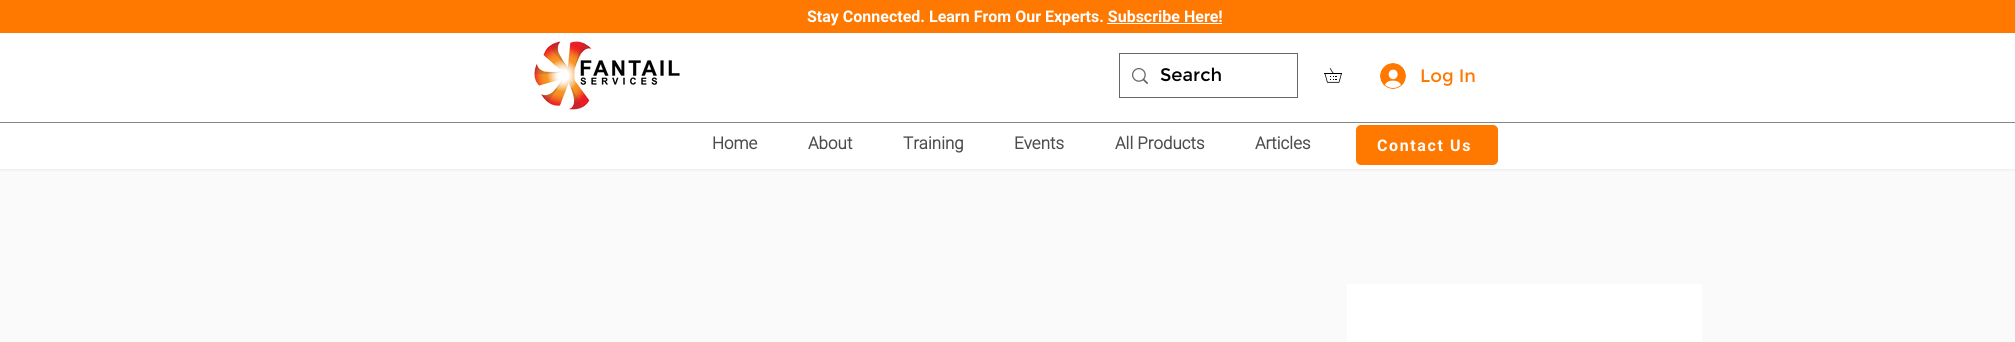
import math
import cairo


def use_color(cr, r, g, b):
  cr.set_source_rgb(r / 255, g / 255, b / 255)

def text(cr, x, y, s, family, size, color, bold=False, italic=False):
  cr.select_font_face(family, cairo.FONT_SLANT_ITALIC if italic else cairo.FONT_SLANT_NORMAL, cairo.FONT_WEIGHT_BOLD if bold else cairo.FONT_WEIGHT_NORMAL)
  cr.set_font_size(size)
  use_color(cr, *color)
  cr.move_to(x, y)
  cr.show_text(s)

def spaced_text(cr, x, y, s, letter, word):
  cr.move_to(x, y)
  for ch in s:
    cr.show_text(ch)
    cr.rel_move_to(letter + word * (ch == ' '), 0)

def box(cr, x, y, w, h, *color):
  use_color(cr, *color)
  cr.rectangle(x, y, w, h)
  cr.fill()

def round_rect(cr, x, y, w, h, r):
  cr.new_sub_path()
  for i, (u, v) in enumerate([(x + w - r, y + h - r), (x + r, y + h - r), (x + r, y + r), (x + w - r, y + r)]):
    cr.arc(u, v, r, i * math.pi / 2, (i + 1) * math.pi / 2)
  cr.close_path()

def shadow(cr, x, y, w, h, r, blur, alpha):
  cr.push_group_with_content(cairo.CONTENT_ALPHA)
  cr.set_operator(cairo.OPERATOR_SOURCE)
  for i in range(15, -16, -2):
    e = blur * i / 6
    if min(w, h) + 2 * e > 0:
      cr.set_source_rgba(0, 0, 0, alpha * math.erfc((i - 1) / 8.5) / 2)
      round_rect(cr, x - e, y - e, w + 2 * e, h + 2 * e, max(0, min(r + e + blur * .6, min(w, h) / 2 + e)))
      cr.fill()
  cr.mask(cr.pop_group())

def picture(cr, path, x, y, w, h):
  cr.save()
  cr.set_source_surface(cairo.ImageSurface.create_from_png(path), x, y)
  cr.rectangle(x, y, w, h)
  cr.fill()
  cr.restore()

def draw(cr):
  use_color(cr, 250, 250, 250)
  cr.paint()
  use_color(cr, 0, 0, 0)
  shadow(cr, 0, 0, 2015, 166, 0, 2.5, 0.5)
  box(cr, 0, 0, 2015, 33, 255, 120, 0)
  box(cr, 1107, 23, 115, 1, 255, 255, 255)
  box(cr, 0, 33, 2015, 136, 255, 255, 255)
  picture(cr, "img_01.png", 534, 41, 146, 69)
  cr.rectangle(1119.5, 53.5, 178, 44)
  use_color(cr, 102, 102, 102)
  cr.set_line_width(1)
  cr.stroke()
  picture(cr, "img_02.png", 1132, 68, 16, 16)
  picture(cr, "img_03.png", 1324, 68, 18, 15)
  picture(cr, "img_04.png", 1380, 63, 26, 26)
  box(cr, 0, 122, 2015, 1, 131, 136, 130)
  use_color(cr, 255, 120, 0)
  round_rect(cr, 1356, 125, 142, 40, 5)
  cr.fill()
  box(cr, 1347, 284, 355, 58, 255, 255, 255)
  text(cr, 807, 22, "Stay Connected. Learn From Our Experts. Subscribe Here!", "Roboto", 16, (255, 255, 255), bold=True)
  text(cr, 1160, 81, "Search", "Montserrat", 18, (0, 0, 0))
  text(cr, 1420, 82, "Log In", "Montserrat", 18, (255, 120, 0))
  text(cr, 712, 149, "Home", "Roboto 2", 17, (76, 76, 76), bold=True)
  text(cr, 808, 149, "About", "Roboto 2", 17, (76, 76, 76), bold=True)
  text(cr, 903, 149, "Training", "Roboto 2", 17, (76, 76, 76), bold=True)
  text(cr, 1014, 149, "Events", "Roboto 2", 17, (76, 76, 76), bold=True)
  text(cr, 1115, 149, "All Products", "Roboto 2", 17, (76, 76, 76), bold=True)
  text(cr, 1255, 149, "Articles", "Roboto 2", 17, (76, 76, 76), bold=True)
  cr.select_font_face("Roboto", cairo.FONT_SLANT_NORMAL, cairo.FONT_WEIGHT_BOLD)
  cr.set_font_size(16)
  use_color(cr, 255, 255, 255)
  spaced_text(cr, 1377, 151, "Contact Us", 1.6, 0)


surface = cairo.ImageSurface(cairo.FORMAT_RGB24, 2015, 342)
cr = cairo.Context(surface)
options = cairo.FontOptions()
options.set_hint_metrics(cairo.HINT_METRICS_OFF)
options.set_hint_style(cairo.HINT_STYLE_NONE)
cr.set_font_options(options)
cr.set_miter_limit(4)
draw(cr)
surface.write_to_png("out.png")
